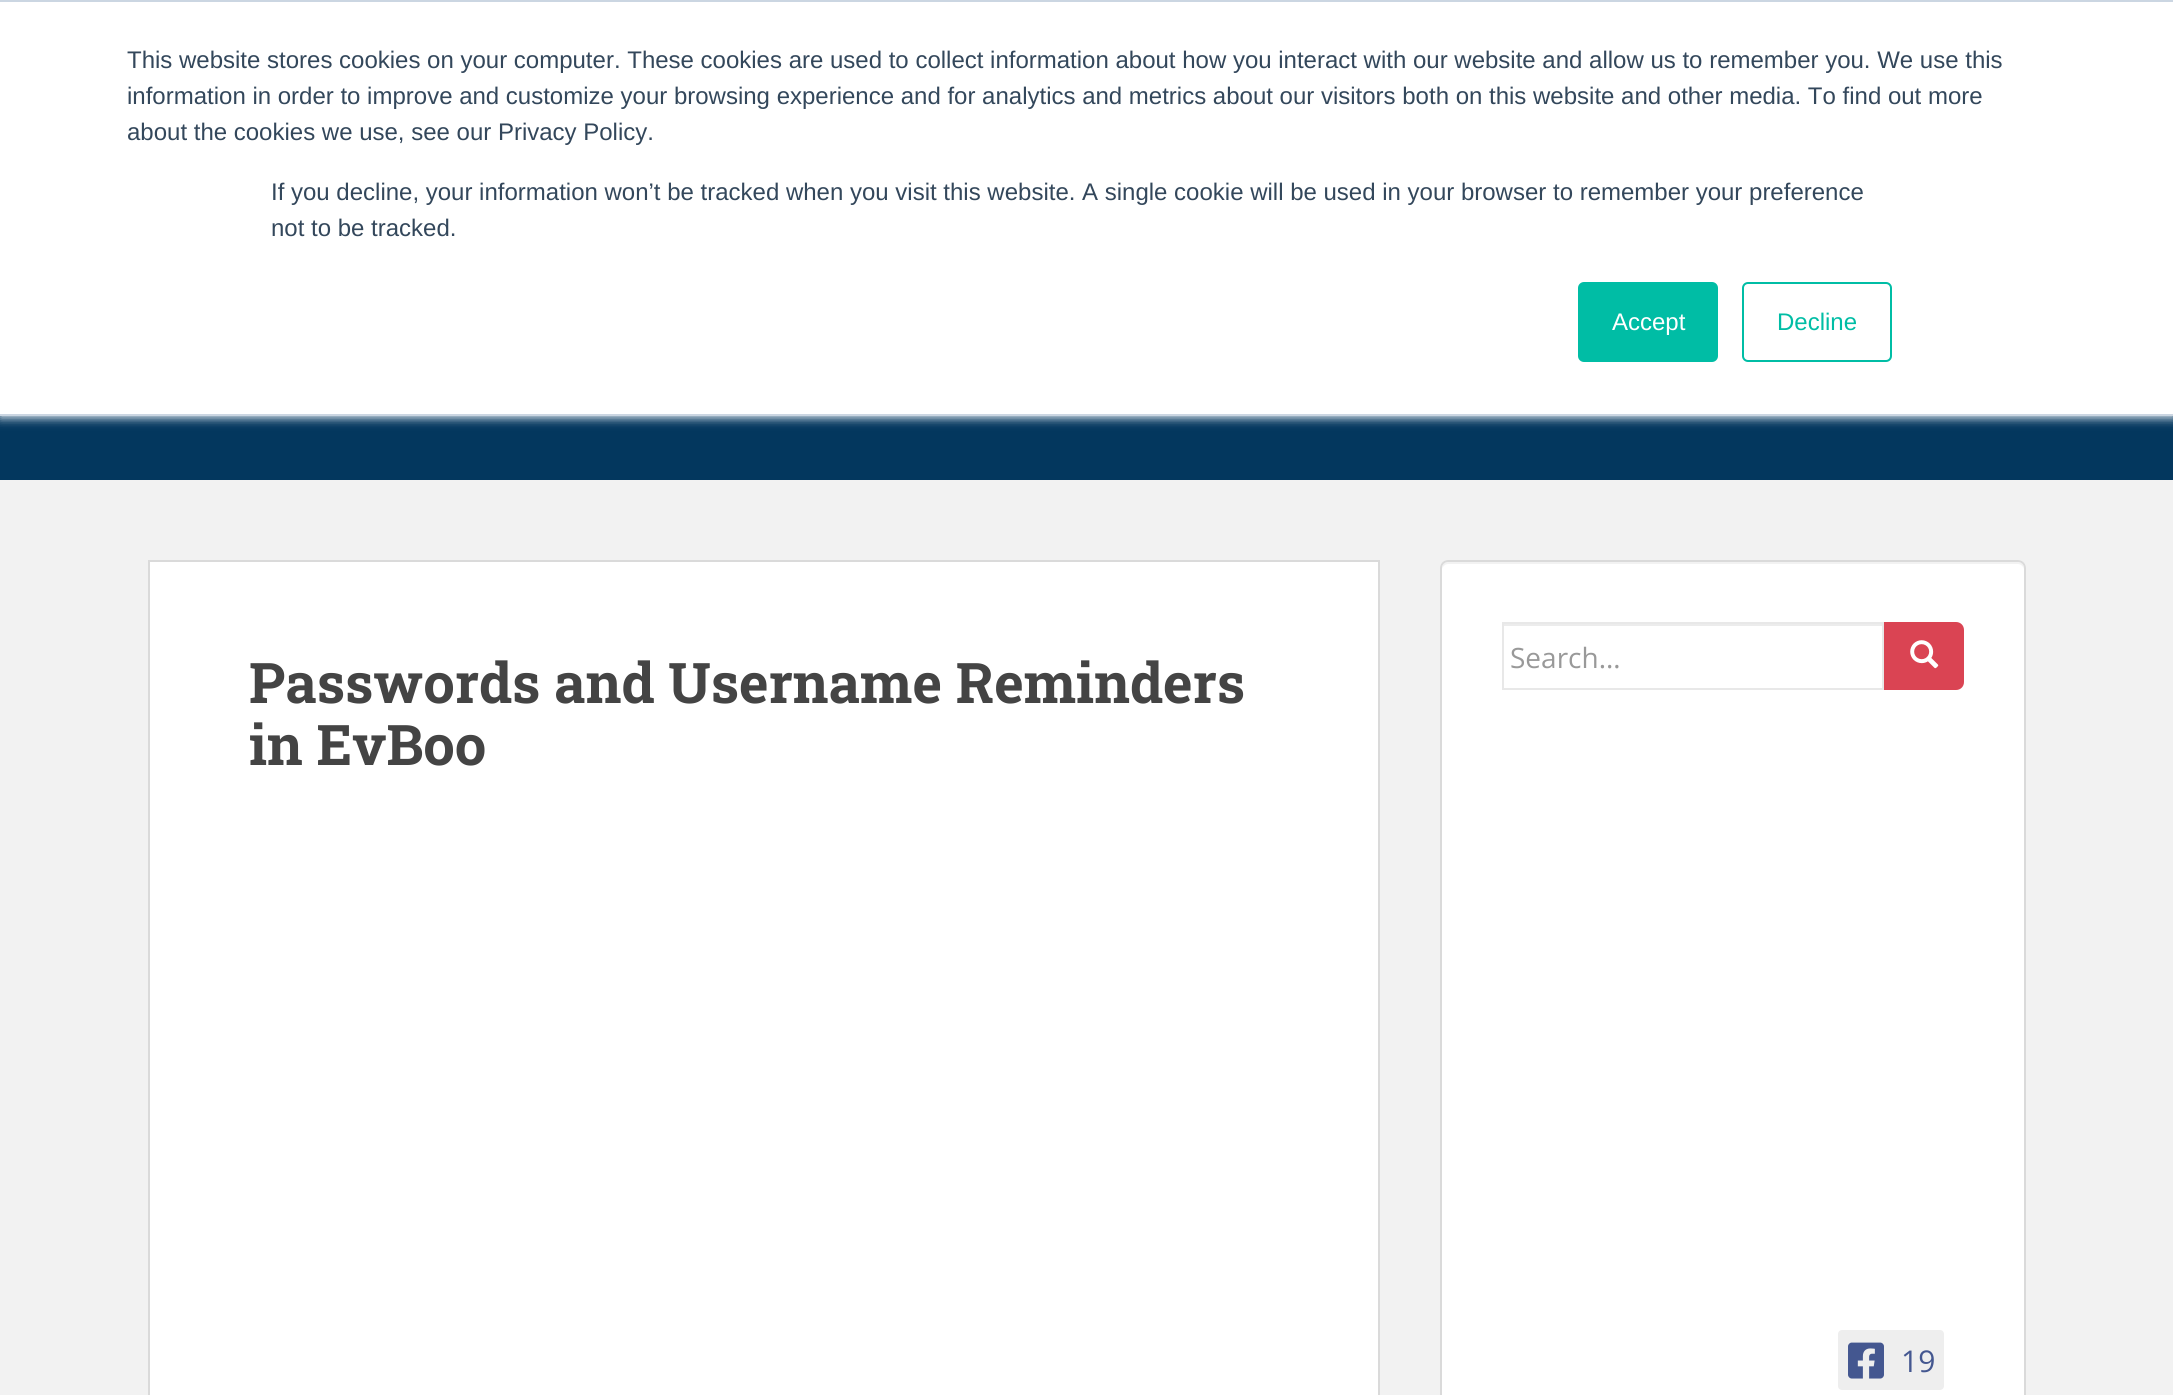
import math
import cairo


def use_color(cr, r, g, b):
  cr.set_source_rgb(r / 255, g / 255, b / 255)

def text(cr, x, y, s, family, size, color, bold=False, italic=False):
  cr.select_font_face(family, cairo.FONT_SLANT_ITALIC if italic else cairo.FONT_SLANT_NORMAL, cairo.FONT_WEIGHT_BOLD if bold else cairo.FONT_WEIGHT_NORMAL)
  cr.set_font_size(size)
  use_color(cr, *color)
  cr.move_to(x, y)
  cr.show_text(s)

def box(cr, x, y, w, h, *color):
  use_color(cr, *color)
  cr.rectangle(x, y, w, h)
  cr.fill()

def round_rect(cr, x, y, w, h, r):
  cr.new_sub_path()
  for i, (u, v) in enumerate([(x + w - r, y + h - r), (x + r, y + h - r), (x + r, y + r), (x + w - r, y + r)]):
    cr.arc(u, v, r, i * math.pi / 2, (i + 1) * math.pi / 2)
  cr.close_path()

def shadow(cr, x, y, w, h, r, blur, alpha):
  cr.push_group_with_content(cairo.CONTENT_ALPHA)
  cr.set_operator(cairo.OPERATOR_SOURCE)
  for i in range(15, -16, -2):
    e = blur * i / 6
    if min(w, h) + 2 * e > 0:
      cr.set_source_rgba(0, 0, 0, alpha * math.erfc((i - 1) / 8.5) / 2)
      round_rect(cr, x - e, y - e, w + 2 * e, h + 2 * e, max(0, min(r + e + blur * .6, min(w, h) / 2 + e)))
      cr.fill()
  cr.mask(cr.pop_group())

def picture(cr, path, x, y, w, h):
  cr.save()
  cr.set_source_surface(cairo.ImageSurface.create_from_png(path), x, y)
  cr.rectangle(x, y, w, h)
  cr.fill()
  cr.restore()

def draw(cr):
  use_color(cr, 242, 242, 242)
  cr.paint()
  box(cr, 0, 416, 2173, 64, 3, 55, 94)
  use_color(cr, 234, 240, 246)
  shadow(cr, 0, 2, 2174, 416, 0, 5, 1)
  box(cr, 0, 2, 2173, 412, 255, 255, 255)
  box(cr, 0, 0, 2173, 2, 203, 214, 226)
  box(cr, 0, 414, 2173, 2, 203, 214, 226)
  use_color(cr, 0, 189, 165)
  round_rect(cr, 1579, 283, 138, 78, 5)
  cr.fill_preserve()
  cr.stroke()
  round_rect(cr, 1743, 283, 148, 78, 5)
  cr.stroke()
  use_color(cr, 255, 255, 255)
  cr.rectangle(149, 561, 1230, 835)
  cr.fill_preserve()
  use_color(cr, 218, 218, 218)
  cr.stroke()
  use_color(cr, 255, 255, 255)
  round_rect(cr, 1440, 560, 586, 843, 8)
  cr.fill()
  use_color(cr, 242, 242, 242)
  cr.new_path()
  cr.move_to(1448, 564)
  cr.line_to(2018, 564)
  cr.curve_to(2021, 564, 2024, 567, 2024, 570)
  cr.curve_to(2024, 566, 2023, 562, 2018, 562)
  cr.line_to(1448, 562)
  cr.curve_to(1443, 562, 1442, 566, 1442, 570)
  cr.curve_to(1442, 567, 1445, 564, 1448, 564)
  cr.close_path()
  cr.fill()
  round_rect(cr, 1441, 561, 584, 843, 7)
  use_color(cr, 218, 218, 218)
  cr.stroke()
  box(cr, 1504, 624, 378, 2, 236, 236, 236)
  cr.rectangle(1503, 623, 380, 66)
  use_color(cr, 232, 232, 232)
  cr.stroke()
  use_color(cr, 218, 68, 83)
  cr.new_path()
  cr.move_to(1885, 623)
  cr.line_to(1956, 623)
  cr.curve_to(1960, 623, 1963, 626, 1963, 630)
  cr.line_to(1963, 682)
  cr.curve_to(1963, 686, 1960, 689, 1956, 689)
  cr.line_to(1885, 689)
  cr.close_path()
  cr.fill_preserve()
  cr.stroke()
  picture(cr, "img_01.png", 1910, 640, 29, 29)
  use_color(cr, 238, 238, 238)
  round_rect(cr, 1838, 1330, 106, 60, 4)
  cr.fill()
  picture(cr, "img_02.png", 1848, 1342, 36, 37)
  text(cr, 127, 68, "This website stores cookies on your computer. These cookies are used to collect information about how you interact with our website and allow us to remember you. We use this", "Liberation Sans", 24, (51, 71, 91))
  text(cr, 127, 104, "information in order to improve and customize your browsing experience and for analytics and metrics about our visitors both on this website and other media. To find out more", "Liberation Sans", 24, (51, 71, 91))
  text(cr, 127, 140, "about the cookies we use, see our Privacy Policy.", "Liberation Sans", 24, (51, 71, 91))
  text(cr, 271, 200, "If you decline, your information won’t be tracked when you visit this website. A single cookie will be used in your browser to remember your preference", "Liberation Sans", 24, (51, 71, 91))
  text(cr, 271, 236, "not to be tracked.", "Liberation Sans", 24, (51, 71, 91))
  text(cr, 1612, 330, "Accept", "Liberation Sans", 24, (255, 255, 255))
  text(cr, 1777, 330, "Decline", "Liberation Sans", 24, (0, 189, 165))
  text(cr, 249, 703, "Passwords and Username Reminders", "Roboto Slab", 56, (68, 68, 68), bold=True)
  text(cr, 249, 765, "in EvBoo", "Roboto Slab", 56, (68, 68, 68), bold=True)
  text(cr, 1510, 668, "Search…", "Open Sans", 28, (153, 153, 153))
  text(cr, 1901, 1372, "19", "Open Sans", 30, (68, 87, 144))


surface = cairo.ImageSurface(cairo.FORMAT_RGB24, 2173, 1395)
cr = cairo.Context(surface)
options = cairo.FontOptions()
options.set_hint_metrics(cairo.HINT_METRICS_OFF)
options.set_hint_style(cairo.HINT_STYLE_NONE)
cr.set_font_options(options)
cr.set_miter_limit(4)
draw(cr)
surface.write_to_png("out.png")
